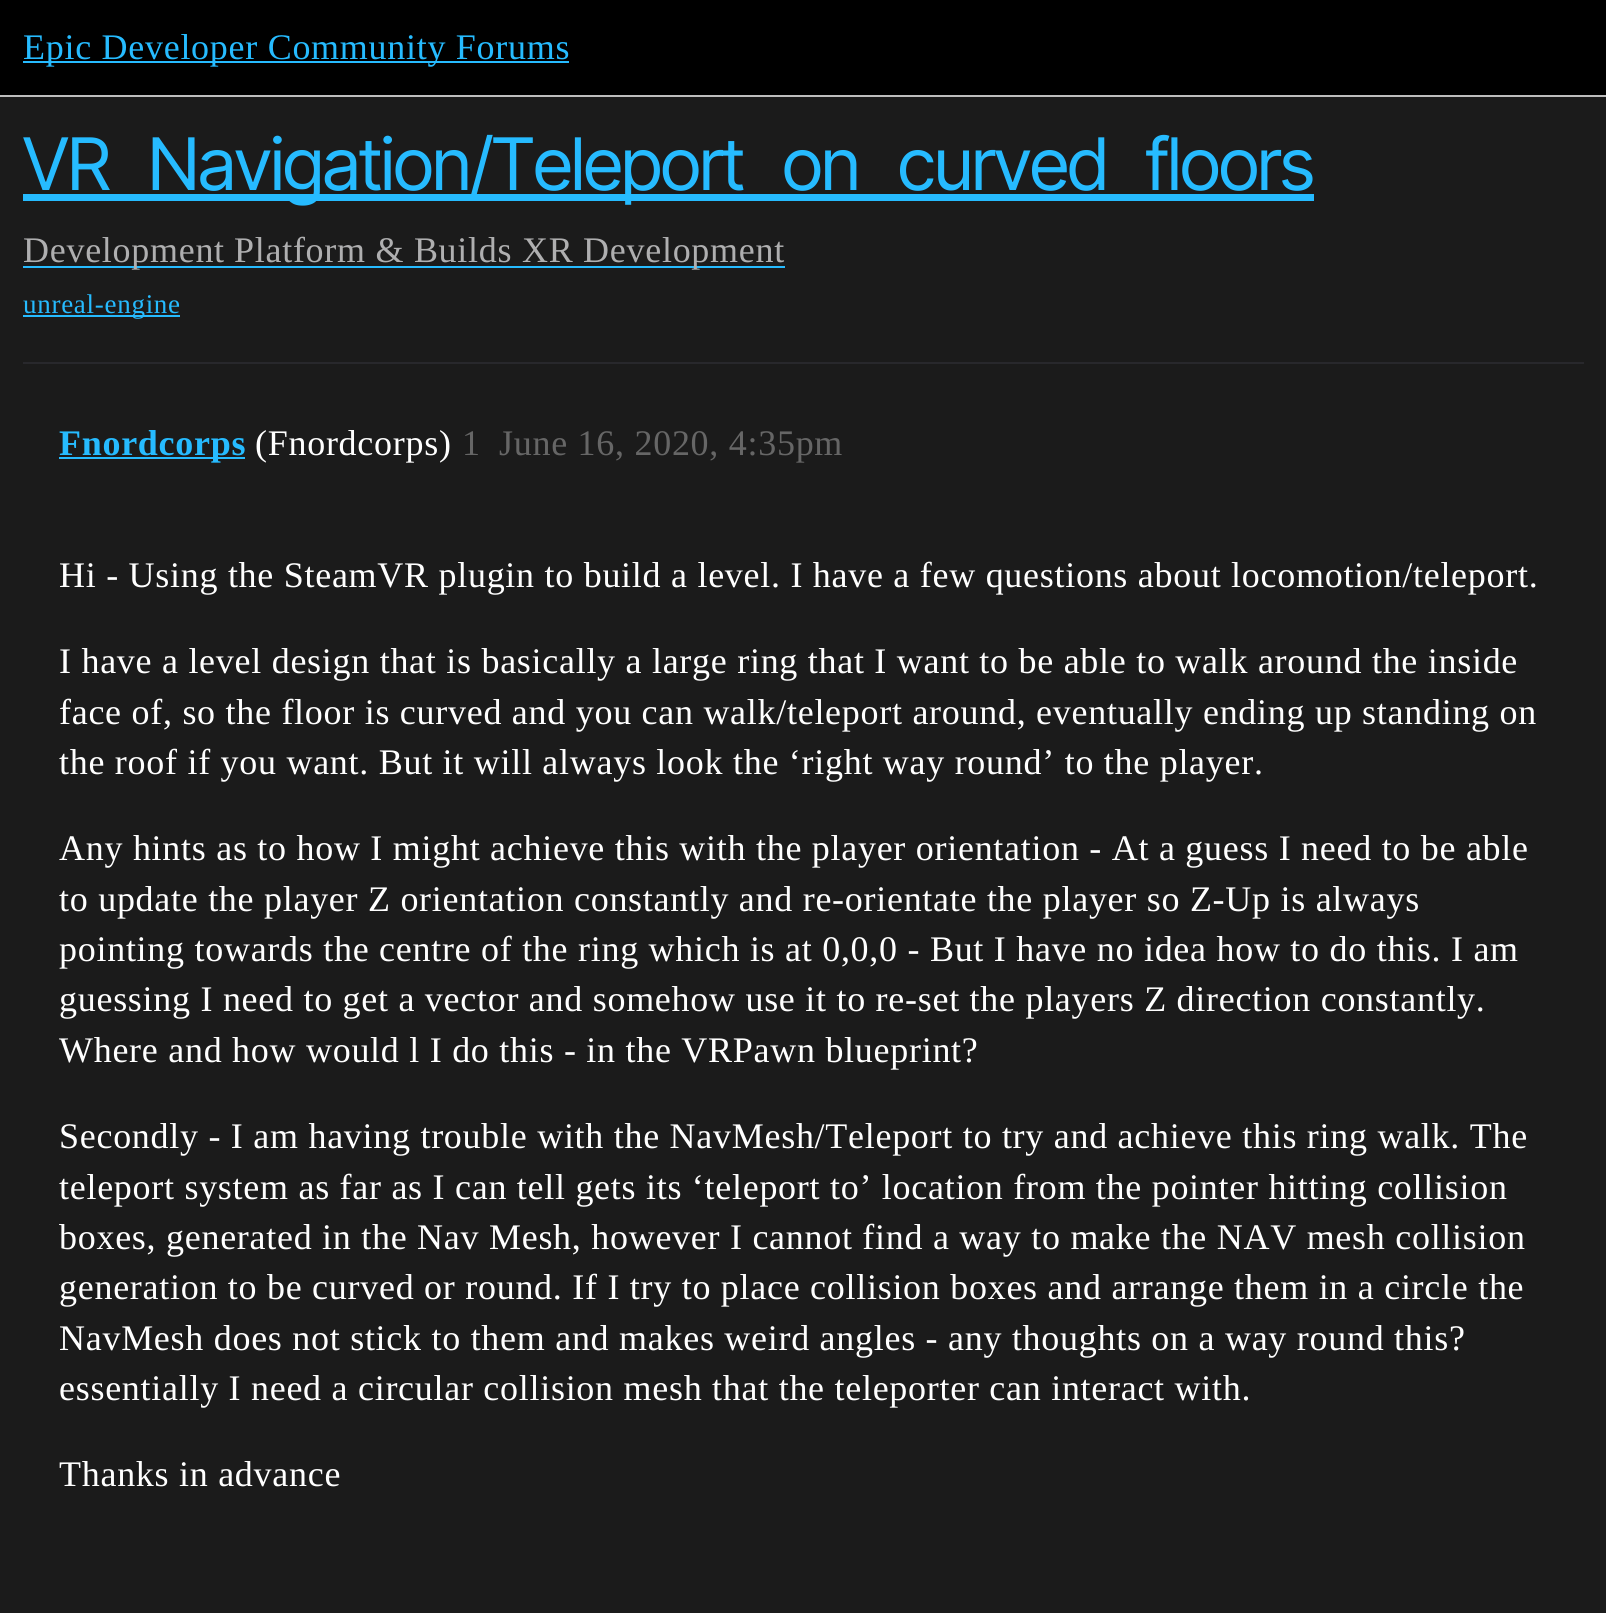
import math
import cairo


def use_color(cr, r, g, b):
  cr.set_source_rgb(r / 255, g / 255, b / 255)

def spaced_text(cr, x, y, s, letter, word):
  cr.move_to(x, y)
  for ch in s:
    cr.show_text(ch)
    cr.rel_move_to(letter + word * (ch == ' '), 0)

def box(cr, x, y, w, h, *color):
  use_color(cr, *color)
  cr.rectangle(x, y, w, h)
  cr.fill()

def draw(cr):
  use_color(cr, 27, 27, 27)
  cr.paint()
  box(cr, 0, 0, 1606, 95, 0, 0, 0)
  box(cr, 0, 95, 1606, 2, 189, 189, 189)
  box(cr, 23, 61, 546, 2, 38, 187, 255)
  box(cr, 23, 194, 1291, 7, 38, 187, 255)
  box(cr, 23, 266, 762, 2, 38, 187, 255)
  box(cr, 23, 315, 157, 2, 38, 187, 255)
  box(cr, 23, 362, 1561, 2, 40, 40, 44)
  box(cr, 59, 457, 186, 2, 38, 187, 255)
  cr.select_font_face("Liberation Serif")
  cr.set_font_size(36)
  spaced_text(cr, 23, 59, "Epic Developer Community Forums", 0.72, 0)
  cr.select_font_face("Inter Tight")
  cr.set_font_size(72.4)
  spaced_text(cr, 23, 190, "VR Navigation/Teleport on curved floors", -1.1, 23)
  cr.select_font_face("Liberation Serif")
  cr.set_font_size(36)
  use_color(cr, 175, 175, 176)
  spaced_text(cr, 23, 262, "Development", 0.72, 0)
  spaced_text(cr, 234, 262, "Platform & Builds XR Development", 0.72, 0)
  cr.set_font_size(27)
  use_color(cr, 38, 187, 255)
  spaced_text(cr, 23, 313, "unreal-engine", 0.72, 0)
  cr.select_font_face("Liberation Serif", cairo.FONT_SLANT_NORMAL, cairo.FONT_WEIGHT_BOLD)
  cr.set_font_size(36)
  spaced_text(cr, 59, 455, "Fnordcorps", 0.72, 0)
  cr.select_font_face("Liberation Serif")
  use_color(cr, 255, 255, 255)
  spaced_text(cr, 255, 455, "(Fnordcorps)", 0.72, 0)
  use_color(cr, 102, 102, 102)
  spaced_text(cr, 462, 455, "1", 0.72, 0)
  spaced_text(cr, 499, 455, "June 16, 2020, 4:35pm", 0.72, 0)
  use_color(cr, 255, 255, 255)
  spaced_text(cr, 59, 587, "Hi - Using the SteamVR plugin to build a level. I have a few questions about locomotion/teleport.", 0.72, 0)
  spaced_text(cr, 59, 673, "I have a level design that is basically a large ring that I want to be able to walk around the inside", 0.72, 0)
  spaced_text(cr, 59, 724, "face of, so the floor is curved and you can walk/teleport around, eventually ending up standing on", 0.72, 0)
  spaced_text(cr, 59, 774, "the roof if you want. But it will always look the ‘right way round’ to the player.", 0.72, 0)
  spaced_text(cr, 59, 860, "Any hints as to how I might achieve this with the player orientation - At a guess I need to be able", 0.72, 0)
  spaced_text(cr, 59, 911, "to update the player Z orientation constantly and re-orientate the player so Z-Up is always", 0.72, 0)
  spaced_text(cr, 59, 961, "pointing towards the centre of the ring which is at 0,0,0 - But I have no idea how to do this. I am", 0.72, 0)
  spaced_text(cr, 59, 1011, "guessing I need to get a vector and somehow use it to re-set the players Z direction constantly.", 0.72, 0)
  spaced_text(cr, 59, 1062, "Where and how would l I do this - in the VRPawn blueprint?", 0.72, 0)
  spaced_text(cr, 59, 1148, "Secondly - I am having trouble with the NavMesh/Teleport to try and achieve this ring walk. The", 0.72, 0)
  spaced_text(cr, 59, 1199, "teleport system as far as I can tell gets its ‘teleport to’ location from the pointer hitting collision", 0.72, 0)
  spaced_text(cr, 59, 1249, "boxes, generated in the Nav Mesh, however I cannot find a way to make the NAV mesh collision", 0.72, 0)
  spaced_text(cr, 59, 1299, "generation to be curved or round. If I try to place collision boxes and arrange them in a circle the", 0.72, 0)
  spaced_text(cr, 59, 1350, "NavMesh does not stick to them and makes weird angles - any thoughts on a way round this?", 0.72, 0)
  spaced_text(cr, 59, 1400, "essentially I need a circular collision mesh that the teleporter can interact with.", 0.72, 0)
  spaced_text(cr, 59, 1486, "Thanks in advance", 0.72, 0)


surface = cairo.ImageSurface(cairo.FORMAT_RGB24, 1606, 1613)
cr = cairo.Context(surface)
options = cairo.FontOptions()
options.set_hint_metrics(cairo.HINT_METRICS_OFF)
options.set_hint_style(cairo.HINT_STYLE_NONE)
cr.set_font_options(options)
cr.set_miter_limit(4)
draw(cr)
surface.write_to_png("out.png")
